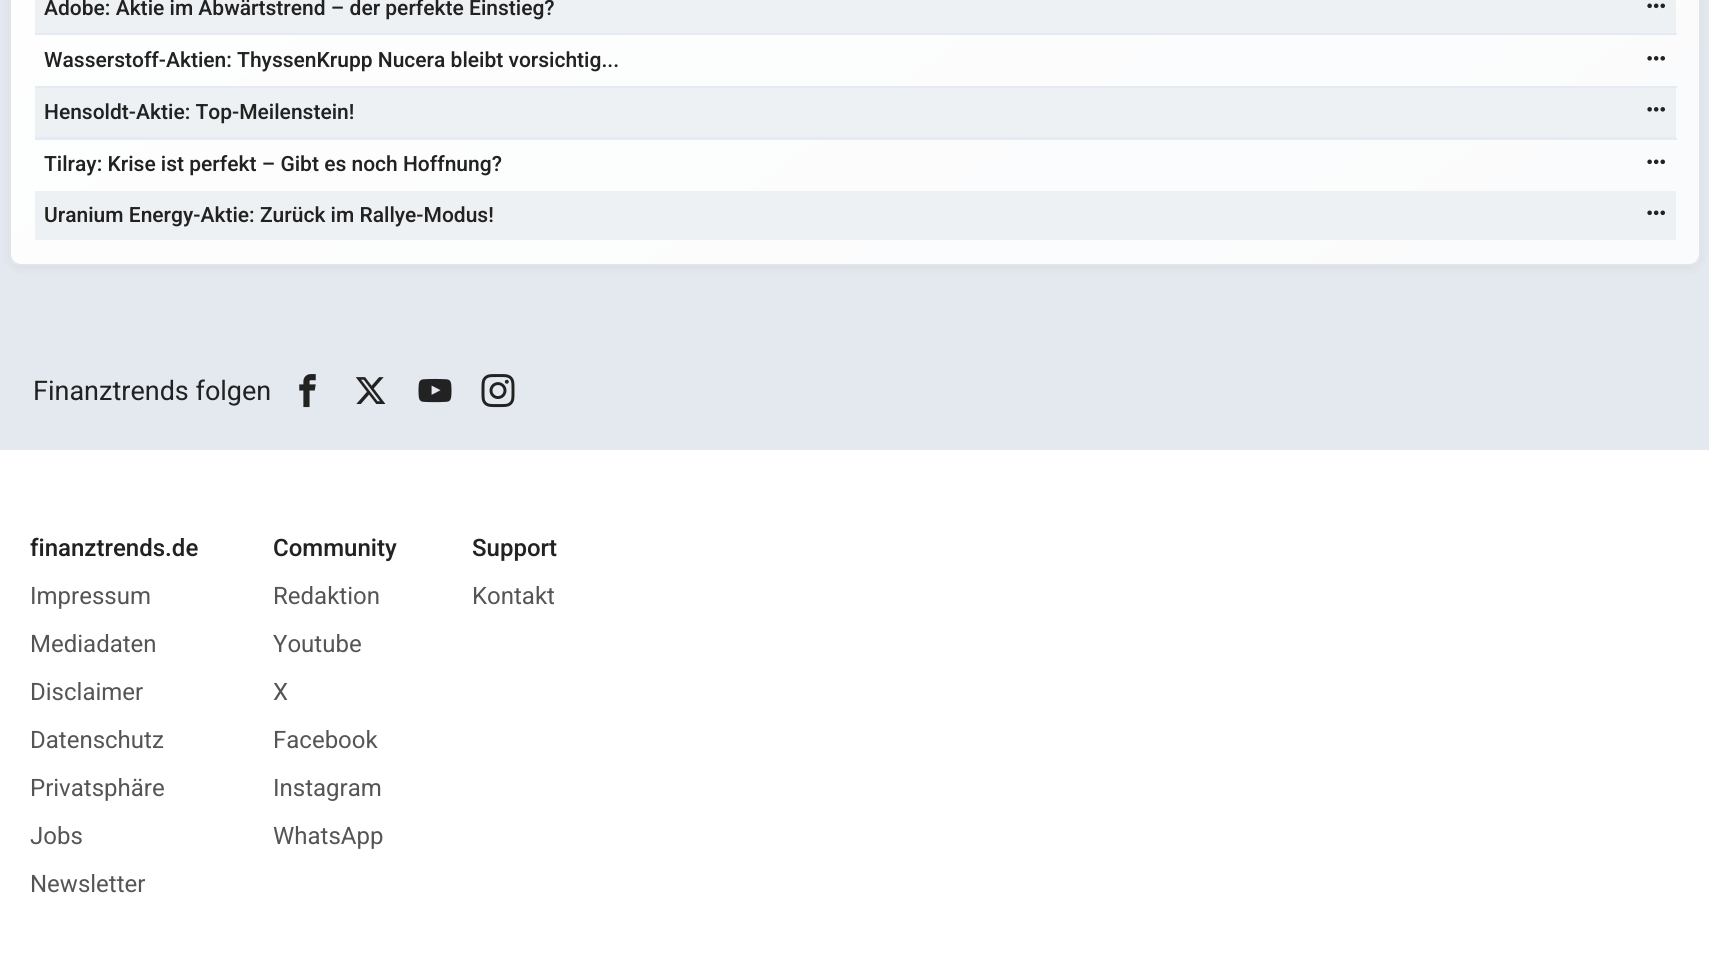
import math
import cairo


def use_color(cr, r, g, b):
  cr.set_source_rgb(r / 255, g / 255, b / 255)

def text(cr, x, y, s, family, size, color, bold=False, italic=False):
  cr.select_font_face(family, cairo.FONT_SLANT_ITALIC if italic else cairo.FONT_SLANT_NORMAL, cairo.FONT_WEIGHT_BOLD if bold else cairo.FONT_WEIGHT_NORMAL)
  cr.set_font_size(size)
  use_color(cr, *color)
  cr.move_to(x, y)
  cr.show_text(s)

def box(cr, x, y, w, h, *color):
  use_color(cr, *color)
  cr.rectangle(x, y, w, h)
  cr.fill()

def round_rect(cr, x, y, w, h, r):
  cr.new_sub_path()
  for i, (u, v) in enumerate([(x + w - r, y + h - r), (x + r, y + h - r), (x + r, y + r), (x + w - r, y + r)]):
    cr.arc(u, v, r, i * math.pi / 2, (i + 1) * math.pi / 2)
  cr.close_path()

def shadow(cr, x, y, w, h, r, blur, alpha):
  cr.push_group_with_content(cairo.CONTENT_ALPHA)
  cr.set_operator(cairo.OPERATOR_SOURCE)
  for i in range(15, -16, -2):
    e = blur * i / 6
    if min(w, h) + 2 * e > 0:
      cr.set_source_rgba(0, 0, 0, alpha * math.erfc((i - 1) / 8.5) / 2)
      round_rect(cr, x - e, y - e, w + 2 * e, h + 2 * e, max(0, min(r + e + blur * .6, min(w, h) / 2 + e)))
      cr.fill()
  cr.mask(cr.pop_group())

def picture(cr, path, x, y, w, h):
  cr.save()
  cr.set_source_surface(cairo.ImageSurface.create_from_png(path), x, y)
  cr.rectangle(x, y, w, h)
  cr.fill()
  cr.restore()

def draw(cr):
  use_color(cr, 228, 233, 239)
  cr.paint()
  use_color(cr, 0, 0, 0)
  shadow(cr, 9, -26, 1692, 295, 12, 4.5, 0.05)
  cr.save()
  round_rect(cr, 9, -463, 1692, 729, 12)
  cr.clip()
  gradient = cairo.LinearGradient(407, -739, 1303, 541)
  gradient.add_color_stop_rgba(0, 1, 1, 1, 1)
  gradient.add_color_stop_rgba(1, 0.98, 0.984, 0.988, 1)
  cr.set_source(gradient)
  cr.rectangle(11, 0, 1689, 264)
  cr.fill()
  cr.restore()
  round_rect(cr, 10, -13, 1690, 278, 11)
  use_color(cr, 225, 229, 233)
  cr.stroke()
  box(cr, 35, 0, 1641, 33, 237, 241, 243)
  box(cr, 35, 33, 1642, 2, 230, 234, 243)
  picture(cr, "img_01.png", 1647, 3, 18, 6)
  box(cr, 35, 86, 1642, 2, 230, 234, 243)
  picture(cr, "img_02.png", 1647, 56, 18, 5)
  box(cr, 35, 88, 1641, 49, 237, 241, 243)
  box(cr, 35, 137, 1641, 1, 230, 234, 243)
  box(cr, 35, 138, 1642, 2, 230, 234, 243)
  picture(cr, "img_03.png", 1647, 107, 18, 5)
  picture(cr, "img_04.png", 1647, 159, 18, 6)
  box(cr, 35, 191, 1641, 49, 237, 241, 243)
  picture(cr, "img_01.png", 1647, 210, 18, 6)
  picture(cr, "img_05.png", 299, 374, 17, 34)
  picture(cr, "img_06.png", 355, 377, 31, 27)
  picture(cr, "img_07.png", 418, 378, 34, 25)
  picture(cr, "img_08.png", 481, 374, 34, 34)
  box(cr, 0, 450, 1709, 527, 255, 255, 255)
  text(cr, 44, 15, "Adobe: Aktie im Abwärtstrend – der perfekte Einstieg?", "Heebo Medium", 21, (34, 34, 34))
  text(cr, 44, 67, "Wasserstoff-Aktien: ThyssenKrupp Nucera bleibt vorsichtig...", "Heebo Medium", 21, (34, 34, 34))
  text(cr, 44, 119, "Hensoldt-Aktie: Top-Meilenstein!", "Heebo Medium", 21, (34, 34, 34))
  text(cr, 44, 171, "Tilray: Krise ist perfekt – Gibt es noch Hoffnung?", "Heebo Medium", 21, (34, 34, 34))
  text(cr, 44, 222, "Uranium Energy-Aktie: Zurück im Rallye-Modus!", "Heebo Medium", 21, (34, 34, 34))
  text(cr, 33, 400, "Finanztrends folgen", "Heebo", 27, (34, 34, 34))
  text(cr, 30, 556, "finanztrends.de", "Heebo Medium", 24, (34, 34, 34))
  text(cr, 30, 604, "Impressum", "Heebo", 24, (85, 85, 85))
  text(cr, 30, 652, "Mediadaten", "Heebo", 24, (85, 85, 85))
  text(cr, 30, 700, "Disclaimer", "Heebo", 24, (85, 85, 85))
  text(cr, 30, 748, "Datenschutz", "Heebo", 24, (85, 85, 85))
  text(cr, 30, 796, "Privatsphäre", "Heebo", 24, (85, 85, 85))
  text(cr, 30, 844, "Jobs", "Heebo", 24, (85, 85, 85))
  text(cr, 30, 892, "Newsletter", "Heebo", 24, (85, 85, 85))
  text(cr, 273, 556, "Community", "Heebo Medium", 24, (34, 34, 34))
  text(cr, 273, 604, "Redaktion", "Heebo", 24, (85, 85, 85))
  text(cr, 273, 652, "Youtube", "Heebo", 24, (85, 85, 85))
  text(cr, 273, 700, "X", "Heebo", 24, (85, 85, 85))
  text(cr, 273, 748, "Facebook", "Heebo", 24, (85, 85, 85))
  text(cr, 273, 796, "Instagram", "Heebo", 24, (85, 85, 85))
  text(cr, 273, 844, "WhatsApp", "Heebo", 24, (85, 85, 85))
  text(cr, 472, 556, "Support", "Heebo Medium", 24, (34, 34, 34))
  text(cr, 472, 604, "Kontakt", "Heebo", 24, (85, 85, 85))


surface = cairo.ImageSurface(cairo.FORMAT_RGB24, 1709, 977)
cr = cairo.Context(surface)
options = cairo.FontOptions()
options.set_hint_metrics(cairo.HINT_METRICS_OFF)
options.set_hint_style(cairo.HINT_STYLE_NONE)
cr.set_font_options(options)
cr.set_miter_limit(4)
draw(cr)
surface.write_to_png("out.png")
